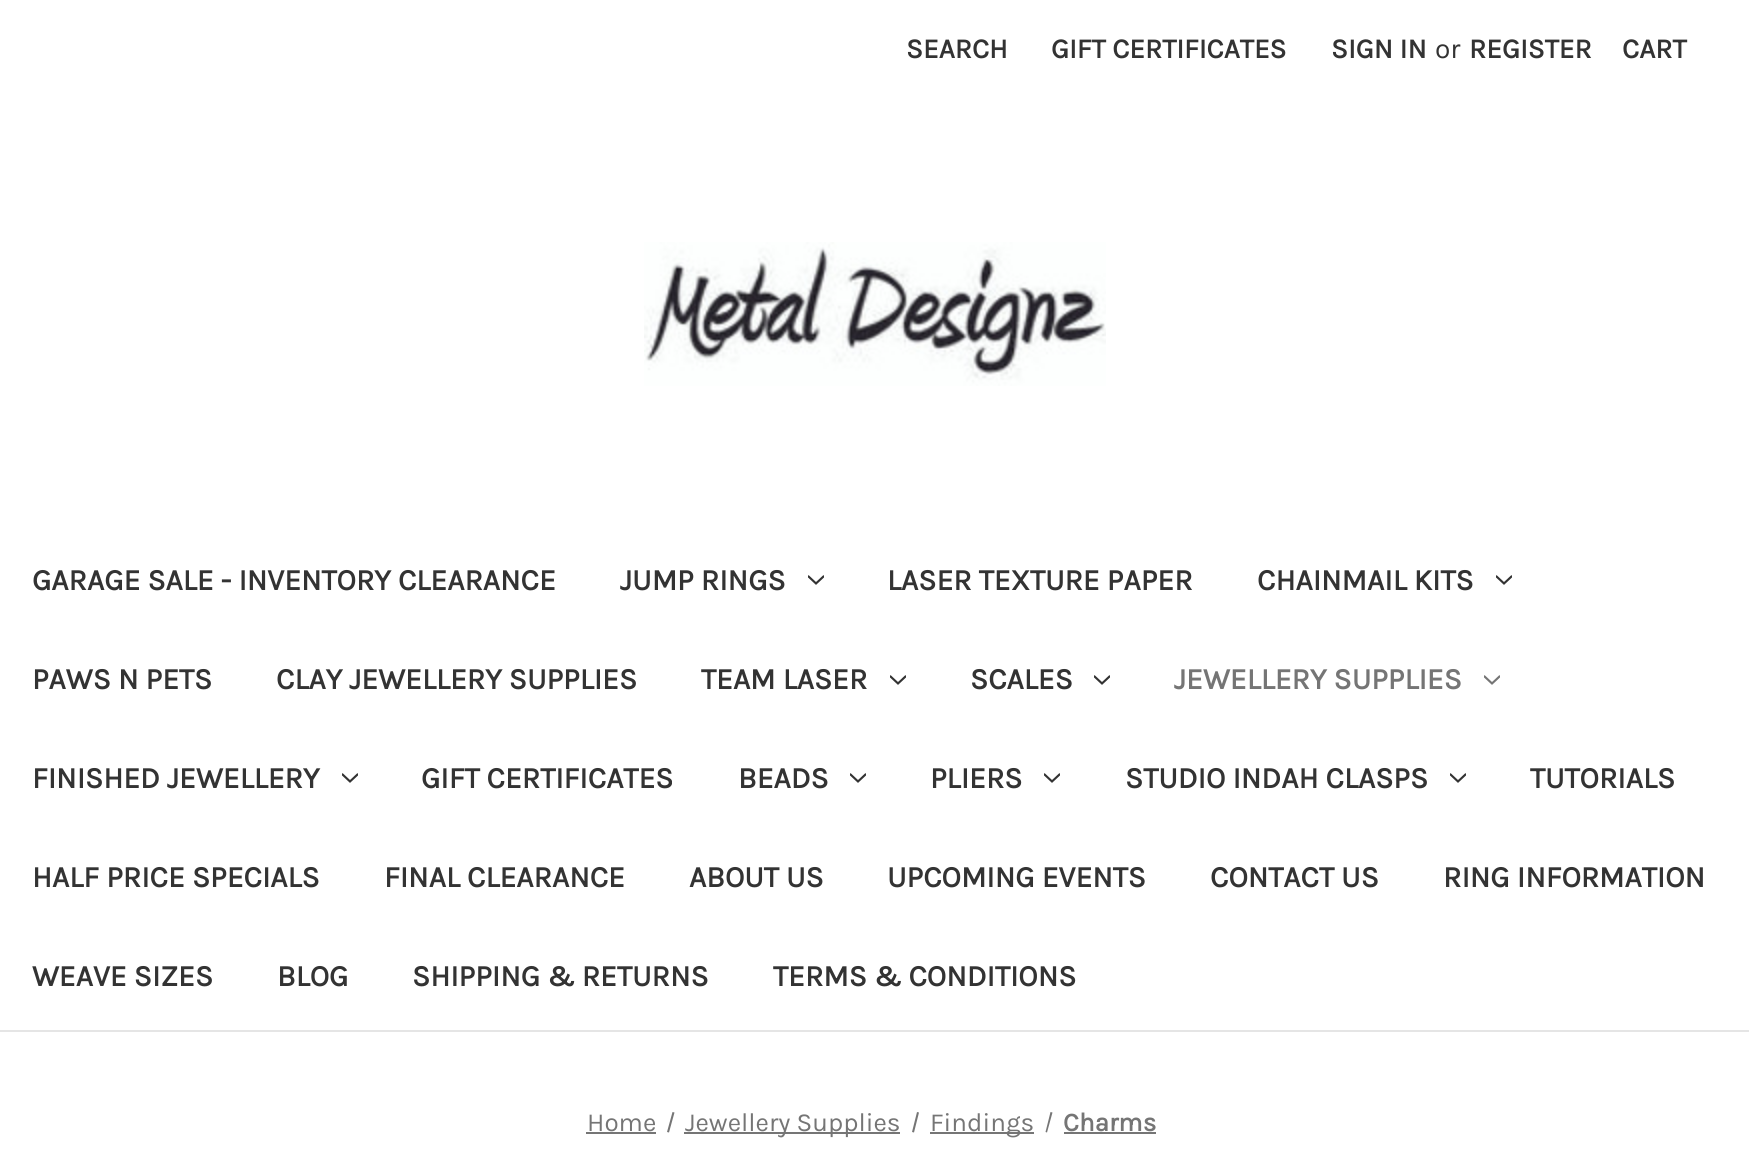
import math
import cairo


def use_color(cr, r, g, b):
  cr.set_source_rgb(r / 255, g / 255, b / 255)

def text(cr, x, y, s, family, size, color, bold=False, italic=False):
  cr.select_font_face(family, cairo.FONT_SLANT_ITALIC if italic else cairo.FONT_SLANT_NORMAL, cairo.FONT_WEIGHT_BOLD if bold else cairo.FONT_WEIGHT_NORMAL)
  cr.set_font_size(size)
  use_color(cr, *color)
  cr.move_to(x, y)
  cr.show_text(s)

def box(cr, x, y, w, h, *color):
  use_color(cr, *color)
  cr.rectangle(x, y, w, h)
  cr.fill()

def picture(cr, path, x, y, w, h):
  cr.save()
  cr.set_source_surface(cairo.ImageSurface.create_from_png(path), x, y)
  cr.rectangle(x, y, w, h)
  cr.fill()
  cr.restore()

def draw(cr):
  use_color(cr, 255, 255, 255)
  cr.paint()
  box(cr, 0, 1030, 1749, 2, 229, 229, 229)
  picture(cr, "img_01.png", 644, 242, 462, 144)
  picture(cr, "img_02.png", 808, 575, 16, 10)
  picture(cr, "img_02.png", 1496, 575, 16, 10)
  picture(cr, "img_02.png", 890, 675, 16, 10)
  picture(cr, "img_02.png", 1094, 675, 16, 10)
  picture(cr, "img_03.png", 1484, 675, 16, 10)
  picture(cr, "img_02.png", 342, 773, 16, 10)
  picture(cr, "img_02.png", 850, 773, 16, 10)
  picture(cr, "img_02.png", 1044, 773, 16, 10)
  picture(cr, "img_02.png", 1450, 773, 16, 10)
  box(cr, 586, 1132, 70, 2, 117, 117, 117)
  cr.new_path()
  cr.move_to(672.5, 1112)
  cr.line_to(674.5, 1112.5)
  cr.line_to(669, 1132.5)
  cr.line_to(667, 1132)
  cr.close_path()
  cr.fill()
  box(cr, 684, 1132, 216, 2, 117, 117, 117)
  cr.new_path()
  cr.move_to(917, 1112)
  cr.line_to(919, 1112.5)
  cr.line_to(914, 1132.5)
  cr.line_to(912, 1132)
  cr.close_path()
  cr.fill()
  box(cr, 930, 1132, 104, 2, 117, 117, 117)
  cr.new_path()
  cr.move_to(1050.5, 1112)
  cr.line_to(1052.5, 1112.5)
  cr.line_to(1047, 1132.5)
  cr.line_to(1045.5, 1132)
  cr.close_path()
  cr.fill()
  box(cr, 1064, 1132, 92, 2, 117, 117, 117)
  text(cr, 906, 58, "SEARCH", "Karla", 28, (51, 51, 51), bold=True)
  text(cr, 1051, 58, "GIFT CERTIFICATES", "Karla", 28, (51, 51, 51), bold=True)
  text(cr, 1331, 58, "SIGN IN", "Karla", 28, (51, 51, 51), bold=True)
  text(cr, 1435, 58, "or", "Karla", 28, (51, 51, 51))
  text(cr, 1469, 58, "REGISTER", "Karla", 28, (51, 51, 51), bold=True)
  text(cr, 1622, 58, "CART", "Karla", 28, (51, 51, 51), bold=True)
  text(cr, 32, 590, "GARAGE SALE - INVENTORY CLEARANCE", "Karla", 30, (51, 51, 51), bold=True)
  text(cr, 620, 590, "JUMP RINGS", "Karla", 30, (51, 51, 51), bold=True)
  text(cr, 887, 590, "LASER TEXTURE PAPER", "Karla", 30, (51, 51, 51), bold=True)
  text(cr, 1257, 590, "CHAINMAIL KITS", "Karla", 30, (51, 51, 51), bold=True)
  text(cr, 32, 689, "PAWS N PETS", "Karla", 30, (51, 51, 51), bold=True)
  text(cr, 276, 689, "CLAY JEWELLERY SUPPLIES", "Karla", 30, (51, 51, 51), bold=True)
  text(cr, 701, 689, "TEAM LASER", "Karla", 30, (51, 51, 51), bold=True)
  text(cr, 970, 689, "SCALES", "Karla", 30, (51, 51, 51), bold=True)
  text(cr, 1174, 689, "JEWELLERY SUPPLIES", "Karla", 30, (117, 117, 117), bold=True)
  text(cr, 32, 788, "FINISHED JEWELLERY", "Karla", 30, (51, 51, 51), bold=True)
  text(cr, 421, 788, "GIFT CERTIFICATES", "Karla", 30, (51, 51, 51), bold=True)
  text(cr, 738, 788, "BEADS", "Karla", 30, (51, 51, 51), bold=True)
  text(cr, 930, 788, "PLIERS", "Karla", 30, (51, 51, 51), bold=True)
  text(cr, 1125, 788, "STUDIO INDAH CLASPS", "Karla", 30, (51, 51, 51), bold=True)
  text(cr, 1530, 788, "TUTORIALS", "Karla", 30, (51, 51, 51), bold=True)
  text(cr, 32, 887, "HALF PRICE SPECIALS", "Karla", 30, (51, 51, 51), bold=True)
  text(cr, 384, 887, "FINAL CLEARANCE", "Karla", 30, (51, 51, 51), bold=True)
  text(cr, 689, 887, "ABOUT US", "Karla", 30, (51, 51, 51), bold=True)
  text(cr, 887, 887, "UPCOMING EVENTS", "Karla", 30, (51, 51, 51), bold=True)
  text(cr, 1210, 887, "CONTACT US", "Karla", 30, (51, 51, 51), bold=True)
  text(cr, 1443, 887, "RING INFORMATION", "Karla", 30, (51, 51, 51), bold=True)
  text(cr, 32, 986, "WEAVE SIZES", "Karla", 30, (51, 51, 51), bold=True)
  text(cr, 277, 986, "BLOG", "Karla", 30, (51, 51, 51), bold=True)
  text(cr, 412, 986, "SHIPPING & RETURNS", "Karla", 30, (51, 51, 51), bold=True)
  text(cr, 773, 986, "TERMS & CONDITIONS", "Karla", 30, (51, 51, 51), bold=True)
  text(cr, 587, 1131, "Home", "Karla", 26, (117, 117, 117))
  text(cr, 685, 1131, "Jewellery Supplies", "Karla", 26, (117, 117, 117))
  text(cr, 930, 1131, "Findings", "Karla", 26, (117, 117, 117))
  text(cr, 1063, 1131, "Charms", "Karla", 26, (117, 117, 117), bold=True)


surface = cairo.ImageSurface(cairo.FORMAT_RGB24, 1749, 1157)
cr = cairo.Context(surface)
options = cairo.FontOptions()
options.set_hint_metrics(cairo.HINT_METRICS_OFF)
options.set_hint_style(cairo.HINT_STYLE_NONE)
cr.set_font_options(options)
cr.set_miter_limit(4)
draw(cr)
surface.write_to_png("out.png")
